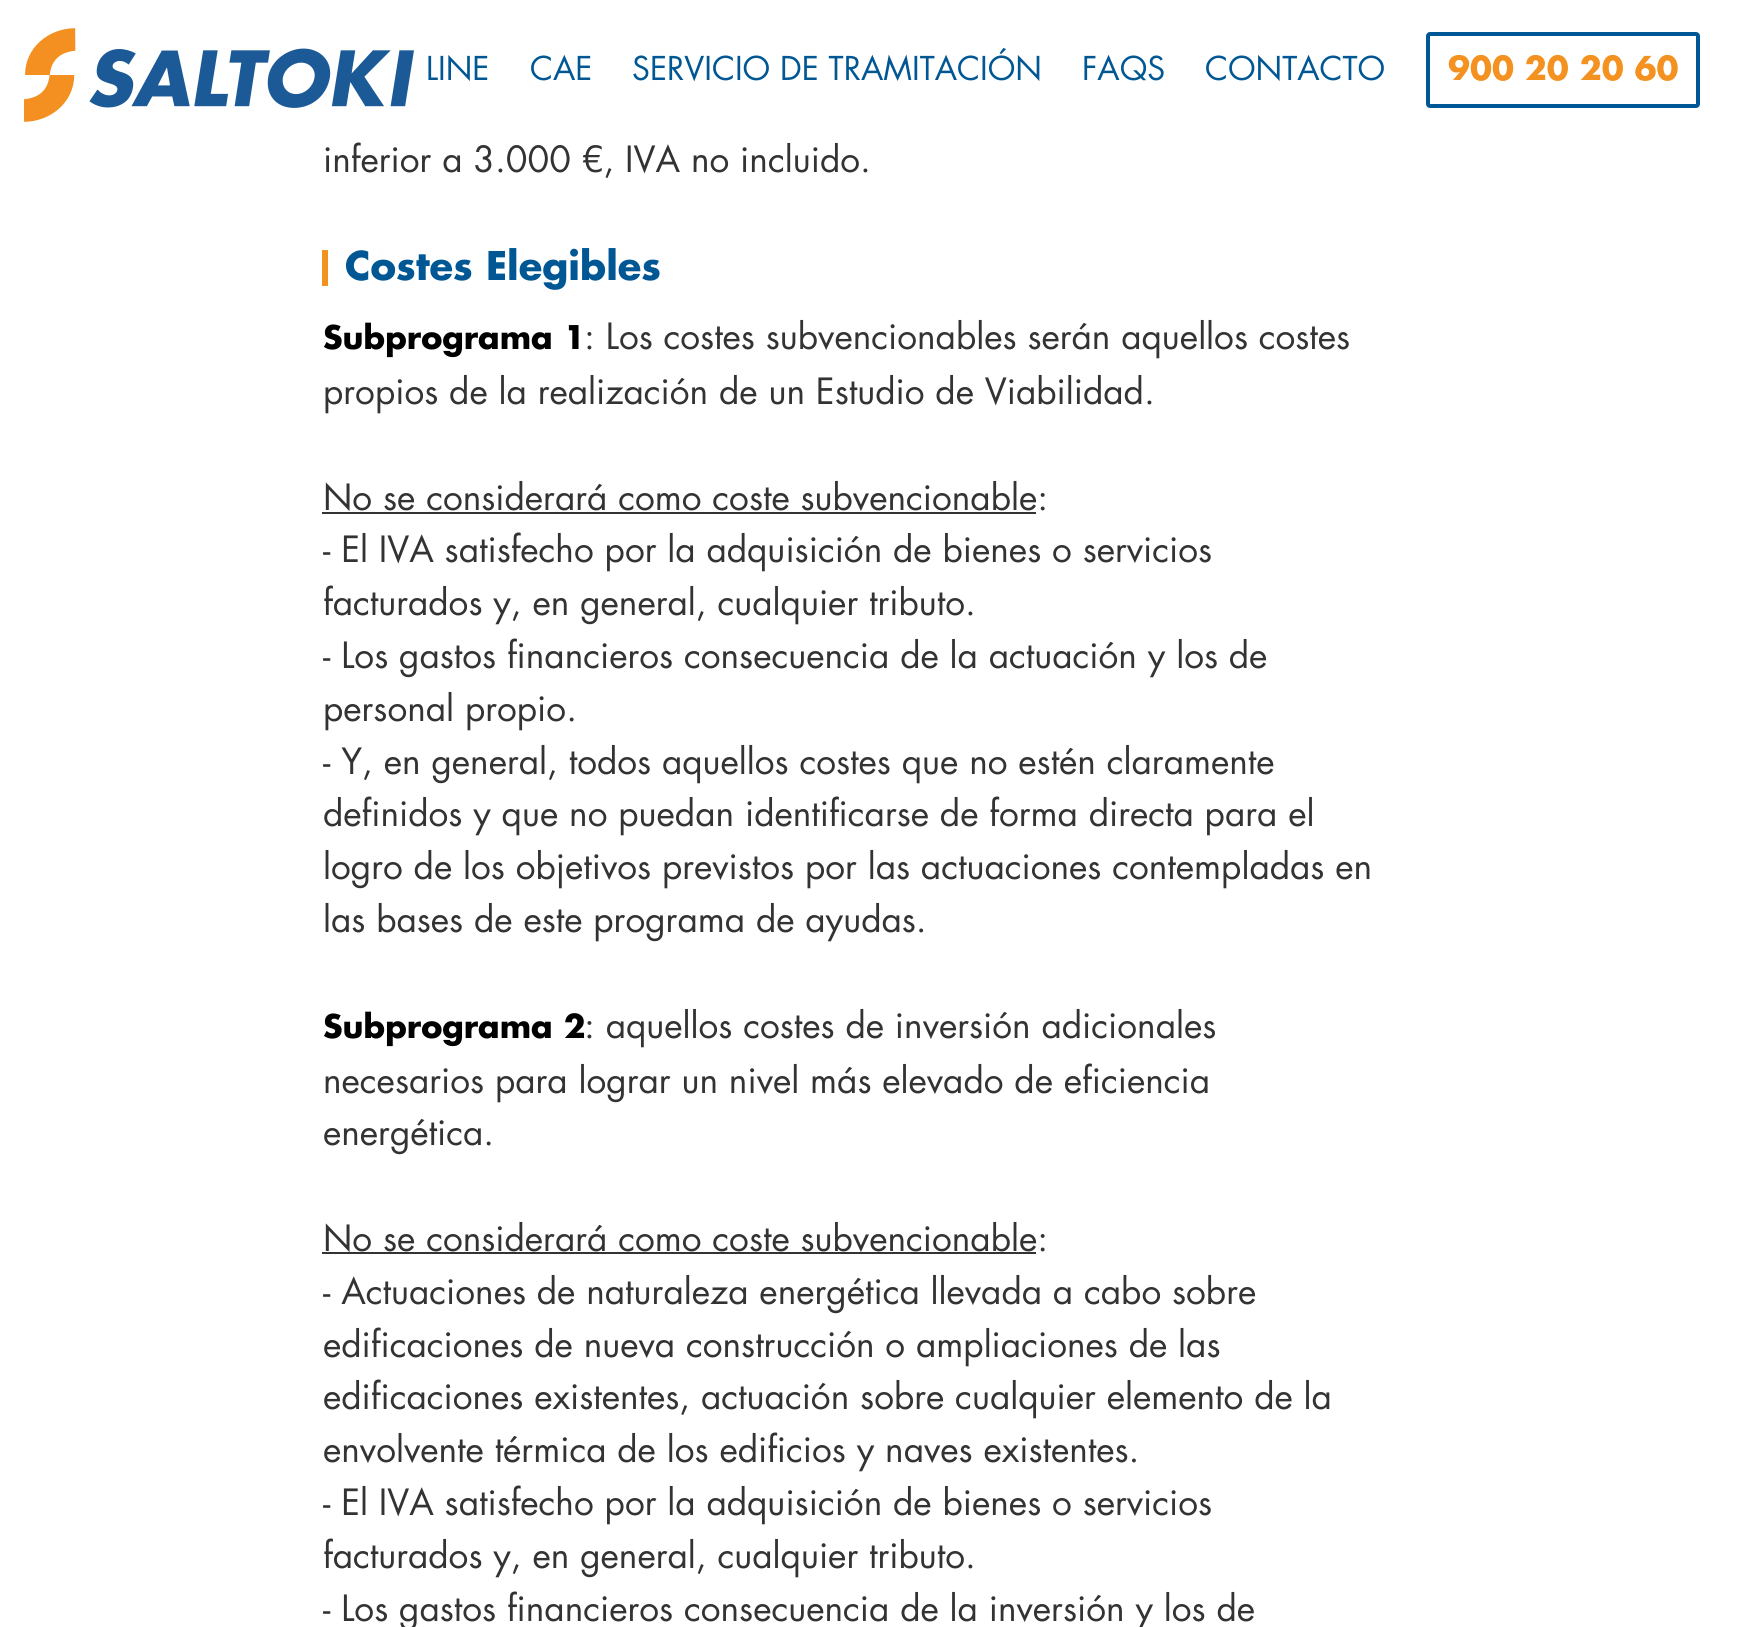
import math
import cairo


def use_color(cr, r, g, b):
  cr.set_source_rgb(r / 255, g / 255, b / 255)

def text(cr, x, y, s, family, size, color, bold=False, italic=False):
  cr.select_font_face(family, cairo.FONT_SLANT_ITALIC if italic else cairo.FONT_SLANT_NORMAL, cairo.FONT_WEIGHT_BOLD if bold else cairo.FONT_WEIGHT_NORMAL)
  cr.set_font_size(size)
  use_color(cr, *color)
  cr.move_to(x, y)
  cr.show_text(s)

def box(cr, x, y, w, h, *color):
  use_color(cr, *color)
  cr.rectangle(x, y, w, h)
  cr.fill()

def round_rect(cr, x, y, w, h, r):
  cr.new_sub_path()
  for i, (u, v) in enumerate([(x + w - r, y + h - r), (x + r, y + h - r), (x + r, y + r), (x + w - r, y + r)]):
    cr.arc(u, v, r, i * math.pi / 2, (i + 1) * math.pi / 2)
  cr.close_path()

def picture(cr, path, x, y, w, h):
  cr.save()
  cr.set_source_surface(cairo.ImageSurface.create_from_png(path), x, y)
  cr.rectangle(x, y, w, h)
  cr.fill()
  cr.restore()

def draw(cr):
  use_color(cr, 255, 255, 255)
  cr.paint()
  picture(cr, "img_01.png", 24, 28, 390, 94)
  round_rect(cr, 1428, 34, 270, 72, 2)
  use_color(cr, 0, 87, 149)
  cr.set_line_width(4)
  cr.stroke()
  box(cr, 322, 250, 6, 36, 243, 145, 33)
  box(cr, 322, 512, 714, 2, 51, 51, 51)
  box(cr, 322, 1252, 714, 2, 51, 51, 51)
  text(cr, 426, 80, "LINE", "Futura", 32, (0, 87, 147))
  text(cr, 530, 80, "CAE", "Futura", 32, (0, 87, 147))
  text(cr, 632, 80, "SERVICIO DE TRAMITACIÓN", "Futura", 32, (0, 87, 147))
  text(cr, 1082, 80, "FAQS", "Futura", 32, (0, 87, 147))
  text(cr, 1205, 80, "CONTACTO", "Futura", 32, (0, 87, 147))
  text(cr, 1448, 80, "900 20 20 60", "Futura", 32, (243, 145, 33), bold=True)
  text(cr, 323, 172, "inferior a 3.000 €, IVA no incluido.", "Futura", 35.2, (51, 51, 51))
  text(cr, 345, 280, "Costes Elegibles", "Futura", 38.5, (0, 87, 147), bold=True)
  text(cr, 323, 349, "Subprograma 1", "Futura", 31.75, (0, 0, 0), bold=True)
  text(cr, 584, 349, ": Los costes subvencionables serán aquellos costes", "Futura", 35.2, (51, 51, 51))
  text(cr, 323, 404, "propios de la realización de un Estudio de Viabilidad.", "Futura", 35.2, (51, 51, 51))
  text(cr, 323, 510, "No se considerará como coste subvencionable:", "Futura", 35.2, (51, 51, 51))
  text(cr, 323, 562, "- El IVA satisfecho por la adquisición de bienes o servicios", "Futura", 35.2, (51, 51, 51))
  text(cr, 323, 615, "facturados y, en general, cualquier tributo.", "Futura", 35.2, (51, 51, 51))
  text(cr, 323, 668, "- Los gastos financieros consecuencia de la actuación y los de", "Futura", 35.2, (51, 51, 51))
  text(cr, 323, 721, "personal propio.", "Futura", 35.2, (51, 51, 51))
  text(cr, 323, 774, "- Y, en general, todos aquellos costes que no estén claramente", "Futura", 35.2, (51, 51, 51))
  text(cr, 323, 826, "definidos y que no puedan identificarse de forma directa para el", "Futura", 35.2, (51, 51, 51))
  text(cr, 323, 879, "logro de los objetivos previstos por las actuaciones contempladas en", "Futura", 35.2, (51, 51, 51))
  text(cr, 323, 932, "las bases de este programa de ayudas.", "Futura", 35.2, (51, 51, 51))
  text(cr, 323, 1038, "Subprograma 2", "Futura", 31.75, (0, 0, 0), bold=True)
  text(cr, 584, 1038, ": aquellos costes de inversión adicionales", "Futura", 35.2, (51, 51, 51))
  text(cr, 323, 1093, "necesarios para lograr un nivel más elevado de eficiencia", "Futura", 35.2, (51, 51, 51))
  text(cr, 323, 1145, "energética.", "Futura", 35.2, (51, 51, 51))
  text(cr, 323, 1251, "No se considerará como coste subvencionable:", "Futura", 35.2, (51, 51, 51))
  text(cr, 323, 1304, "- Actuaciones de naturaleza energética llevada a cabo sobre", "Futura", 35.2, (51, 51, 51))
  text(cr, 323, 1357, "edificaciones de nueva construcción o ampliaciones de las", "Futura", 35.2, (51, 51, 51))
  text(cr, 323, 1409, "edificaciones existentes, actuación sobre cualquier elemento de la", "Futura", 35.2, (51, 51, 51))
  text(cr, 323, 1462, "envolvente térmica de los edificios y naves existentes.", "Futura", 35.2, (51, 51, 51))
  text(cr, 323, 1515, "- El IVA satisfecho por la adquisición de bienes o servicios", "Futura", 35.2, (51, 51, 51))
  text(cr, 323, 1568, "facturados y, en general, cualquier tributo.", "Futura", 35.2, (51, 51, 51))
  text(cr, 323, 1621, "- Los gastos financieros consecuencia de la inversión y los de", "Futura", 35.2, (51, 51, 51))


surface = cairo.ImageSurface(cairo.FORMAT_RGB24, 1743, 1627)
cr = cairo.Context(surface)
options = cairo.FontOptions()
options.set_hint_metrics(cairo.HINT_METRICS_OFF)
options.set_hint_style(cairo.HINT_STYLE_NONE)
cr.set_font_options(options)
cr.set_miter_limit(4)
draw(cr)
surface.write_to_png("out.png")
